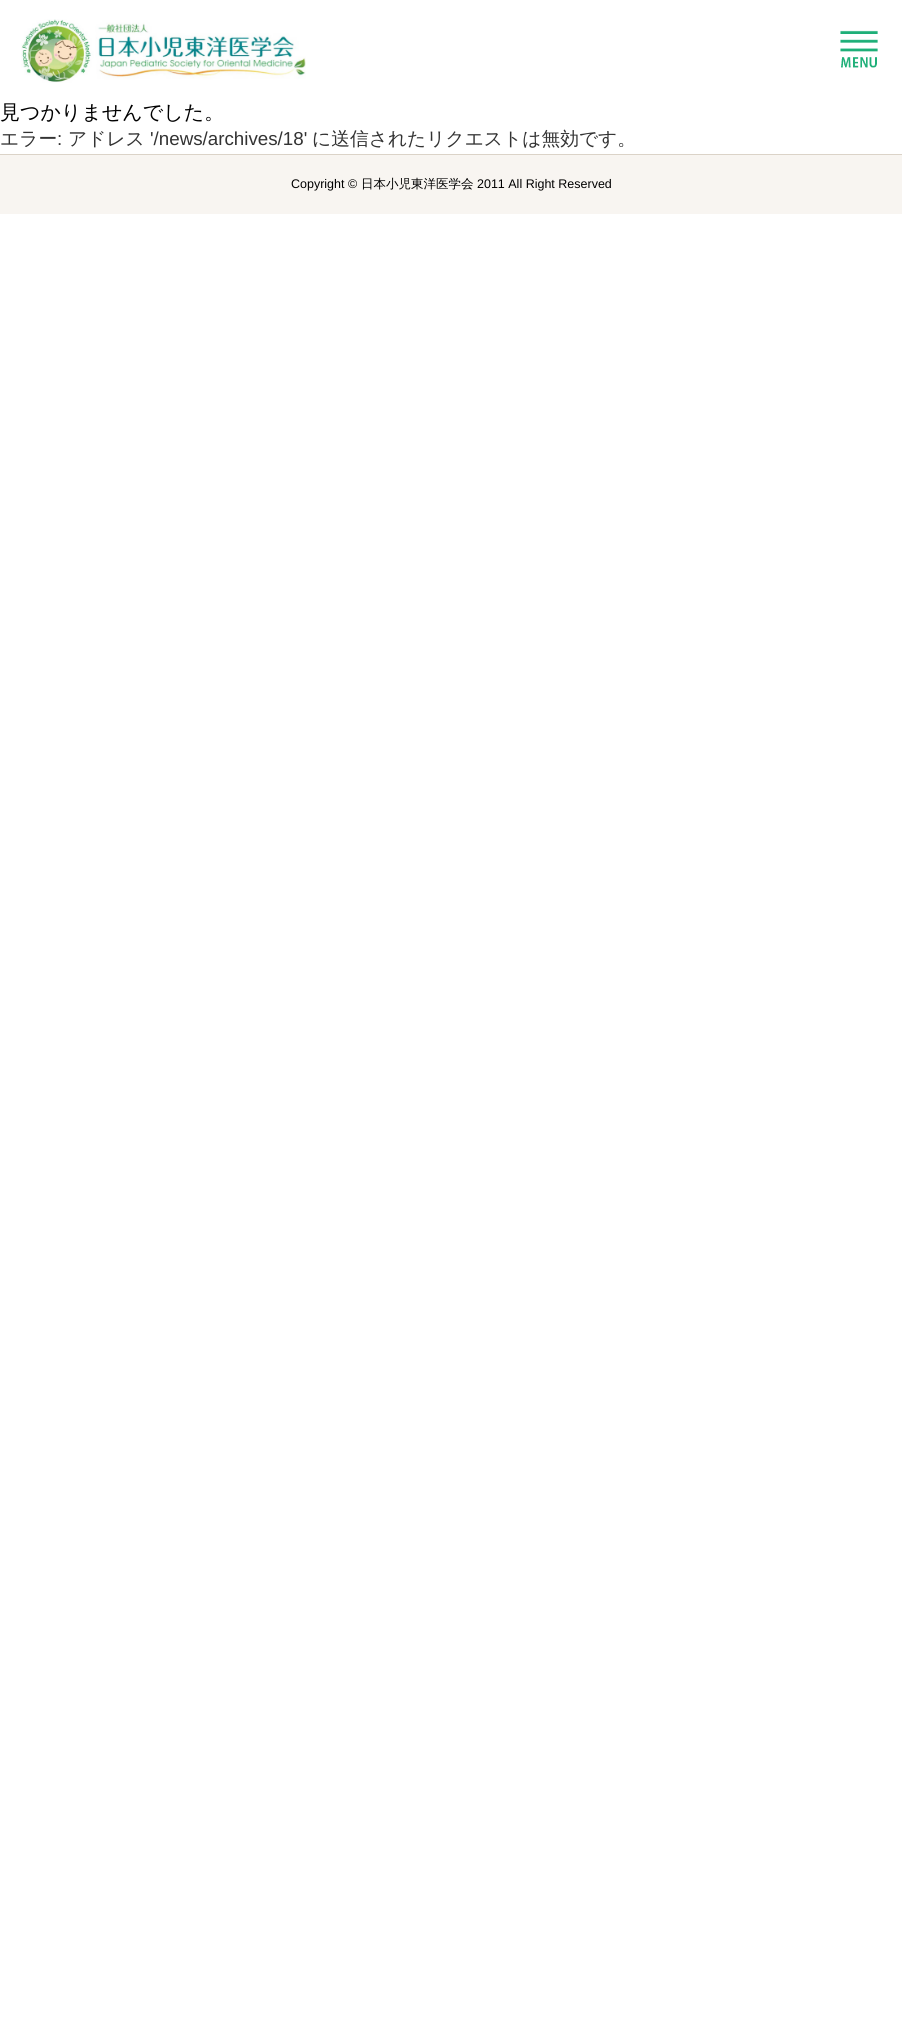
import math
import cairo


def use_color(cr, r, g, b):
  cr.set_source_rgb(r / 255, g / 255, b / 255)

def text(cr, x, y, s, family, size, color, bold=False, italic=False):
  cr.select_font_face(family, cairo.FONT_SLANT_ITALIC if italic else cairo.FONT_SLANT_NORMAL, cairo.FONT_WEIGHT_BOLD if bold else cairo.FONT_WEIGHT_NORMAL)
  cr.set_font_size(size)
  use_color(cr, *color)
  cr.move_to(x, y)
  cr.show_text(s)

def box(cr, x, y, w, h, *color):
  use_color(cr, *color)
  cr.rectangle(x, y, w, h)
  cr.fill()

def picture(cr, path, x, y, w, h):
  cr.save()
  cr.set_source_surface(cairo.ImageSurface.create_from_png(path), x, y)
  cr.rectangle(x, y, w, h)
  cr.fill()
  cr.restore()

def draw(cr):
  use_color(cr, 255, 255, 255)
  cr.paint()
  picture(cr, "img_01.png", 21, 19, 285, 64)
  picture(cr, "img_02.png", 840, 30, 38, 38)
  box(cr, 0, 155, 902, 59, 248, 245, 241)
  box(cr, 0, 154, 902, 1, 219, 211, 200)
  text(cr, 0, 119, "見つかりませんでした。", "WenQuanYi Zen Hei Medium", 20, (0, 0, 0))
  text(cr, 0, 145, "エラー", "WenQuanYi Zen Hei Medium", 18.75, (51, 51, 51))
  text(cr, 57, 145, ":", "Liberation Sans", 18.75, (51, 51, 51))
  text(cr, 68, 145, "アドレス", "WenQuanYi Zen Hei Medium", 18.75, (51, 51, 51))
  text(cr, 150, 145, "'/news/archives/18'", "Liberation Sans", 18.75, (51, 51, 51))
  text(cr, 312, 145, "に送信されたリクエストは無効です。", "WenQuanYi Zen Hei Medium", 18.75, (51, 51, 51))
  text(cr, 291, 188, "Copyright ©", "Liberation Sans", 12.5, (0, 0, 0))
  text(cr, 361, 188, "日本小児東洋医学会", "WenQuanYi Zen Hei Medium", 12.5, (0, 0, 0))
  text(cr, 477, 188, "2011 All Right Reserved", "Liberation Sans", 12.5, (0, 0, 0))


surface = cairo.ImageSurface(cairo.FORMAT_RGB24, 902, 2027)
cr = cairo.Context(surface)
options = cairo.FontOptions()
options.set_hint_metrics(cairo.HINT_METRICS_OFF)
options.set_hint_style(cairo.HINT_STYLE_NONE)
cr.set_font_options(options)
cr.set_miter_limit(4)
draw(cr)
surface.write_to_png("out.png")
